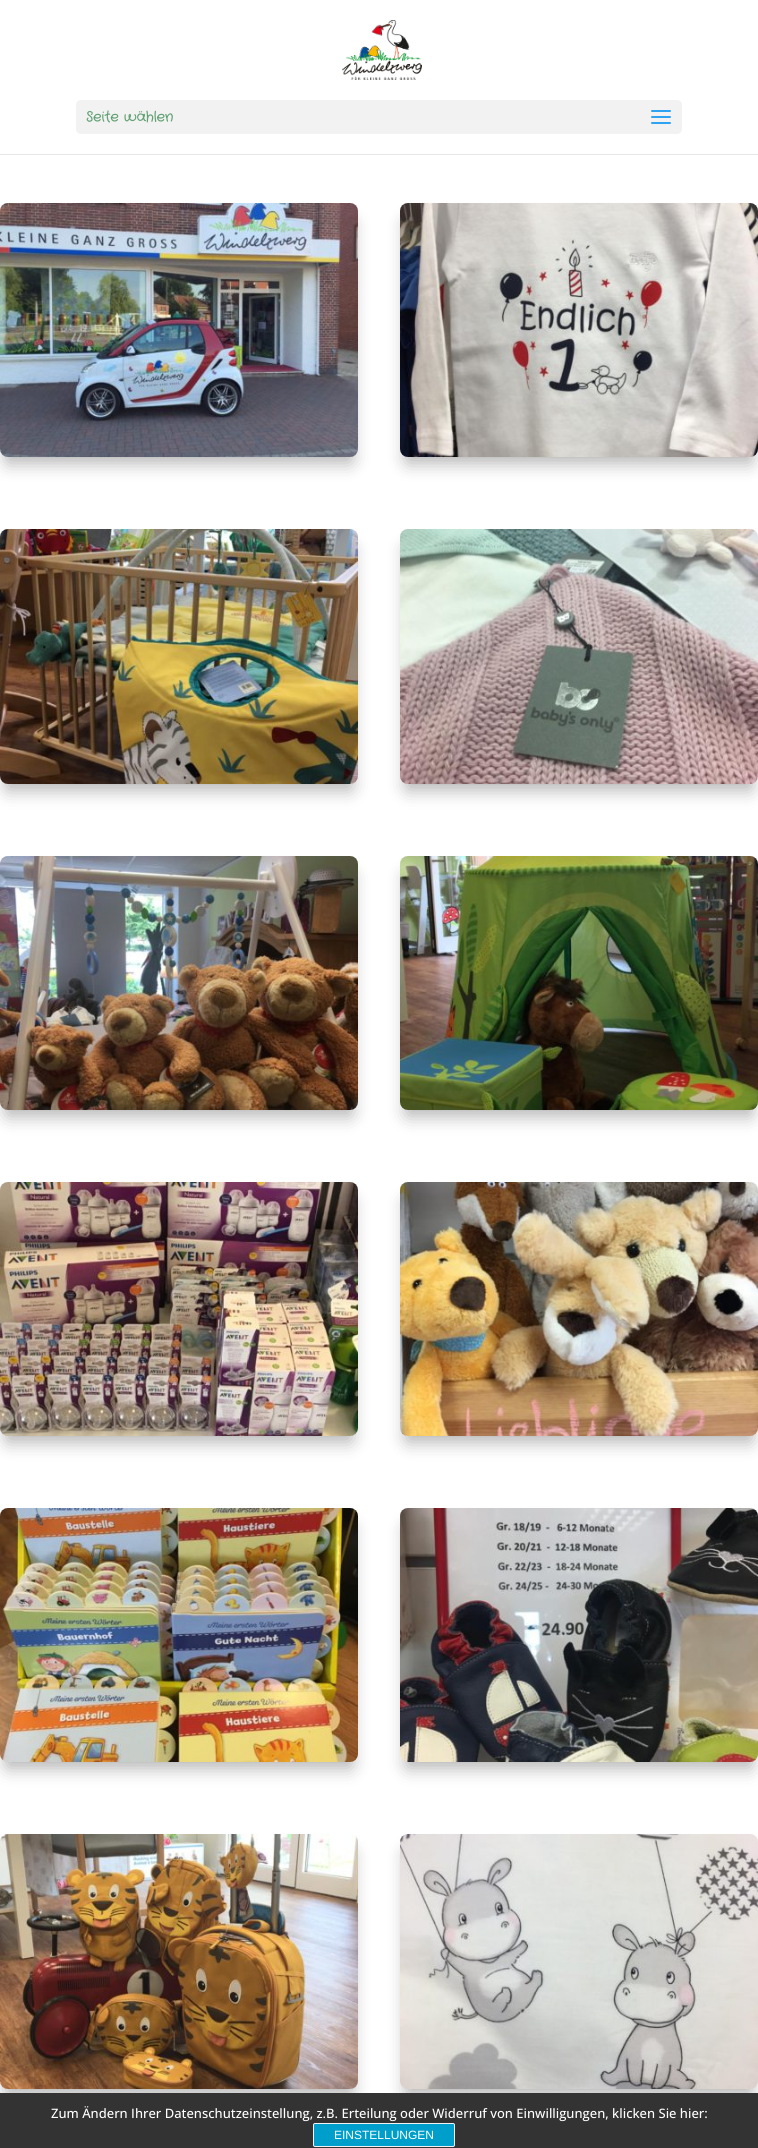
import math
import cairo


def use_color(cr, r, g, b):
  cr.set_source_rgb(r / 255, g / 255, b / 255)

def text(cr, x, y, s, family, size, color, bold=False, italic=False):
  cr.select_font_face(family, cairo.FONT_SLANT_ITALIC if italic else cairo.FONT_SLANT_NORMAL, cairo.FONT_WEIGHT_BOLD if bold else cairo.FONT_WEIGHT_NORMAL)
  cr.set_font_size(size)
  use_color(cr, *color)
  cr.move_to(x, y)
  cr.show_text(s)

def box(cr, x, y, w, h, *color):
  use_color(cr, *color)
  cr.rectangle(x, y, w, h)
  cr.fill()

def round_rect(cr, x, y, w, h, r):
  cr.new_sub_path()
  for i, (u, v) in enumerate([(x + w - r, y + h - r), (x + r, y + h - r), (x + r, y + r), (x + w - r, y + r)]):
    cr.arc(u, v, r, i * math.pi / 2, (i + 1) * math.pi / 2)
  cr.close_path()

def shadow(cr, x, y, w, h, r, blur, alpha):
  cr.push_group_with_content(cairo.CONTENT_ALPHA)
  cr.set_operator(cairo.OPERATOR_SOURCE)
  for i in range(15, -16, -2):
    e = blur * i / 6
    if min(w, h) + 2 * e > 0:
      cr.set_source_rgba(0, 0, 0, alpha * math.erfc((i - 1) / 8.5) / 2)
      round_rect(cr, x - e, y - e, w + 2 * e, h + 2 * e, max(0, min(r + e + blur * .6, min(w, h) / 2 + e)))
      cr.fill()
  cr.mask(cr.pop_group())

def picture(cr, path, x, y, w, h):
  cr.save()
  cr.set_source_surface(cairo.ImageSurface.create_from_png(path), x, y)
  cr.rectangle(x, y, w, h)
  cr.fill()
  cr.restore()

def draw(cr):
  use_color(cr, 255, 255, 255)
  cr.paint()
  box(cr, 0, 154, 758, 1, 230, 230, 230)
  picture(cr, "img_01.png", 342, 20, 80, 60)
  use_color(cr, 242, 242, 242)
  round_rect(cr, 76, 100, 606, 34, 5)
  cr.fill()
  picture(cr, "img_02.png", 651, 110, 20, 14)
  use_color(cr, 0, 0, 0)
  shadow(cr, 6, 221, 346, 242, 2, 9, 0.3)
  picture(cr, "img_03.png", 0, 203, 358, 254)
  shadow(cr, 406, 221, 346, 242, 2, 9, 0.3)
  picture(cr, "img_04.png", 400, 203, 358, 254)
  shadow(cr, 6, 547, 346, 243, 2, 9, 0.3)
  picture(cr, "img_05.png", 0, 529, 358, 255)
  shadow(cr, 406, 547, 346, 243, 2, 9, 0.3)
  picture(cr, "img_06.png", 400, 529, 358, 255)
  shadow(cr, 6, 874, 346, 242, 2, 9, 0.3)
  picture(cr, "img_07.png", 0, 856, 358, 254)
  shadow(cr, 406, 874, 346, 242, 2, 9, 0.3)
  picture(cr, "img_08.png", 400, 856, 358, 254)
  shadow(cr, 6, 1200, 346, 242, 2, 9, 0.3)
  picture(cr, "img_09.png", 0, 1182, 358, 254)
  shadow(cr, 406, 1200, 346, 242, 2, 9, 0.3)
  picture(cr, "img_10.png", 400, 1182, 358, 254)
  shadow(cr, 6, 1526, 346, 242, 2, 9, 0.3)
  picture(cr, "img_11.png", 0, 1508, 358, 254)
  shadow(cr, 406, 1526, 346, 242, 2, 9, 0.3)
  picture(cr, "img_12.png", 400, 1508, 358, 254)
  shadow(cr, 6, 1852, 346, 243, 2, 9, 0.3)
  picture(cr, "img_13.png", 0, 1834, 358, 255)
  shadow(cr, 406, 1852, 346, 243, 2, 9, 0.3)
  picture(cr, "img_14.png", 400, 1834, 358, 255)
  box(cr, 0, 2093, 758, 55, 51, 51, 51)
  use_color(cr, 0, 158, 203)
  round_rect(cr, 313.5, 2123.5, 141, 23, 1.5)
  cr.fill_preserve()
  use_color(cr, 243, 243, 243)
  cr.set_line_width(1)
  cr.stroke()
  text(cr, 86, 121, "Seite wählen", "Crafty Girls", 14, (98, 161, 116), bold=True)
  text(cr, 51, 2118, "Zum Ändern Ihrer Datenschutzeinstellung, z.B. Erteilung oder Widerruf von Einwilligungen, klicken Sie hier:", "Open Sans Medium", 13, (255, 255, 255))
  text(cr, 334, 2139, "EINSTELLUNGEN", "Liberation Sans", 12, (255, 255, 255))


surface = cairo.ImageSurface(cairo.FORMAT_RGB24, 758, 2148)
cr = cairo.Context(surface)
options = cairo.FontOptions()
options.set_hint_metrics(cairo.HINT_METRICS_OFF)
options.set_hint_style(cairo.HINT_STYLE_NONE)
cr.set_font_options(options)
cr.set_miter_limit(4)
draw(cr)
surface.write_to_png("out.png")
